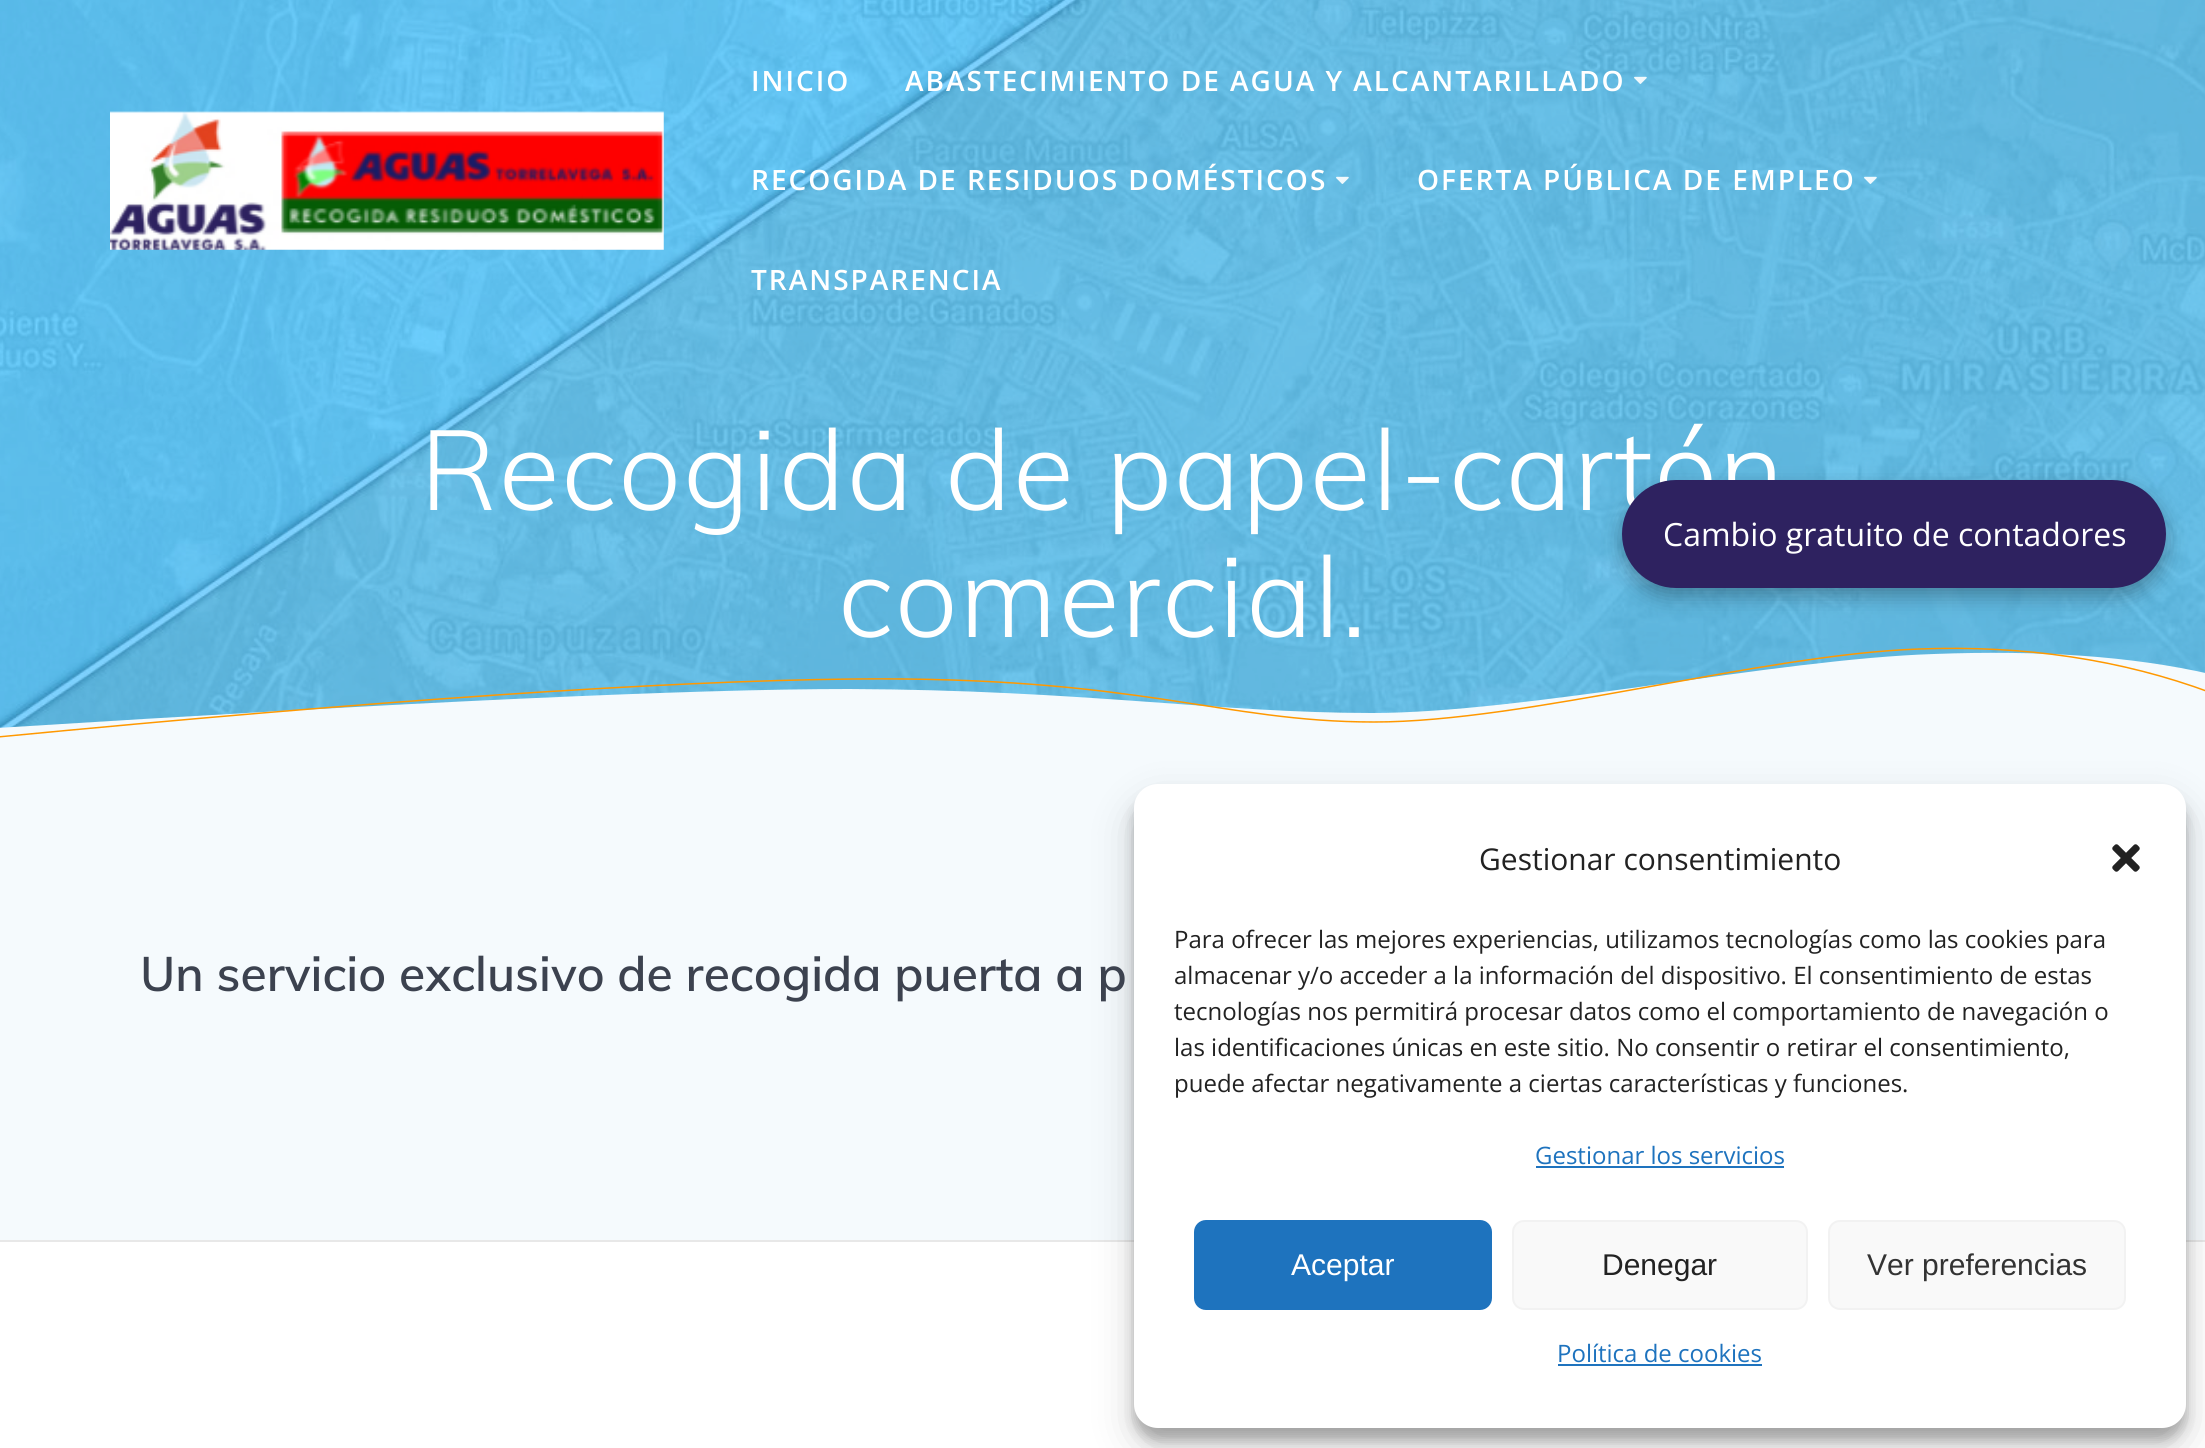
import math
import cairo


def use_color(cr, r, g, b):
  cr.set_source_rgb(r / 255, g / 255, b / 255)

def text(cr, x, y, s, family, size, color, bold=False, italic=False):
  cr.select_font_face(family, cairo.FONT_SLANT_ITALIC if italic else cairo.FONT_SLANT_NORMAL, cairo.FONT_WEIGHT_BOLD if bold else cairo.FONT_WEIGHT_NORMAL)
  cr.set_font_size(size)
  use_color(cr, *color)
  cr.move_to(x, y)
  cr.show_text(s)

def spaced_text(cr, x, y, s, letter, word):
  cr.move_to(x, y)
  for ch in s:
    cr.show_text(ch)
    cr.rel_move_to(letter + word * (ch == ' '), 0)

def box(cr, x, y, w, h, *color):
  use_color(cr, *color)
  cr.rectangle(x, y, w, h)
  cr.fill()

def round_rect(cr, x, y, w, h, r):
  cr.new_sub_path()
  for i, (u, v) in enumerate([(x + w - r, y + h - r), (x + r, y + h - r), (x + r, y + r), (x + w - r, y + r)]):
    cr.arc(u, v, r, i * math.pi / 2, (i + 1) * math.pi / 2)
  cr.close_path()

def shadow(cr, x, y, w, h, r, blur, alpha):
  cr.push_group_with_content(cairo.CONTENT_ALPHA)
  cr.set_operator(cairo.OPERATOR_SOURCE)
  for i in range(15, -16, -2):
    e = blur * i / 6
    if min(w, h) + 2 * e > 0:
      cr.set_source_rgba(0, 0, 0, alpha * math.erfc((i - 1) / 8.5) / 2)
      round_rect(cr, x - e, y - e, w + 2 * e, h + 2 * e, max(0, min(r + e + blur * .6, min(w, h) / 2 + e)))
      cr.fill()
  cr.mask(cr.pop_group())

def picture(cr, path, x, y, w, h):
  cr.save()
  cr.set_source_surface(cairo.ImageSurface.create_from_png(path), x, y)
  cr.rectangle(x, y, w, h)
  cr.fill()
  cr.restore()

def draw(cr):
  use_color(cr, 255, 255, 255)
  cr.paint()
  picture(cr, "img_05.png", 0, 0, 2205, 728)
  picture(cr, "img_01.png", 110, 111, 554, 139)
  picture(cr, "img_02.png", 1634, 76, 13, 8)
  picture(cr, "img_03.png", 1336, 176, 13, 8)
  picture(cr, "img_04.png", 1864, 176, 13, 8)
  use_color(cr, 245, 250, 253)
  cr.new_path()
  cr.move_to(-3, 728)
  cr.curve_to(409, 702, 693, 689, 849, 689)
  cr.curve_to(1084, 690, 1219, 713, 1372, 713)
  cr.curve_to(1524, 713, 1776, 659, 1934, 654)
  cr.curve_to(2039, 650, 2131, 656, 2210, 674)
  cr.line_to(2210, 750)
  cr.line_to(-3, 751)
  cr.close_path()
  cr.fill()
  cr.new_path()
  cr.move_to(-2.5, 737)
  cr.curve_to(376.5, 700.5, 661.5, 681, 853, 679)
  cr.curve_to(1140, 676, 1221.5, 722, 1374, 722)
  cr.curve_to(1526.5, 722, 1761, 654.5, 1919, 649)
  cr.curve_to(2024.5, 645, 2121.5, 659.5, 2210.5, 692.5)
  use_color(cr, 255, 152, 0)
  cr.set_line_width(1.5)
  cr.stroke()
  box(cr, 0, 750, 2205, 490, 245, 250, 253)
  box(cr, 0, 1240, 2205, 2, 232, 232, 232)
  use_color(cr, 0, 0, 0)
  shadow(cr, 1622, 488, 544, 108, 54, 10, 0.3)
  shadow(cr, 1134, 796, 1052, 644, 24, 6, 0.23)
  shadow(cr, 1134, 804, 1052, 644, 24, 20, 0.19)
  use_color(cr, 255, 255, 255)
  round_rect(cr, 1134, 784, 1052, 644, 24)
  cr.fill()
  picture(cr, "img_06.png", 2112, 844, 28, 28)
  box(cr, 1536, 1166, 248, 2, 30, 115, 190)
  round_rect(cr, 1195, 1221, 296, 88, 11)
  cr.fill_preserve()
  cr.set_line_width(2)
  cr.stroke()
  use_color(cr, 249, 249, 249)
  round_rect(cr, 1513, 1221, 294, 88, 11)
  cr.fill_preserve()
  use_color(cr, 242, 242, 242)
  cr.stroke()
  use_color(cr, 249, 249, 249)
  round_rect(cr, 1829, 1221, 296, 88, 11)
  cr.fill_preserve()
  use_color(cr, 242, 242, 242)
  cr.stroke()
  box(cr, 1558, 1364, 204, 2, 30, 115, 190)
  cr.select_font_face("Open Sans SemiBold")
  cr.set_font_size(28)
  use_color(cr, 255, 255, 255)
  spaced_text(cr, 751, 91, "INICIO", 2, 0)
  spaced_text(cr, 905, 91, "ABASTECIMIENTO DE AGUA Y ALCANTARILLADO", 2, 0)
  spaced_text(cr, 751, 190, "RECOGIDA DE RESIDUOS DOMÉSTICOS", 2, 0)
  spaced_text(cr, 1417, 190, "OFERTA PÚBLICA DE EMPLEO", 2, 0)
  spaced_text(cr, 751, 290, "TRANSPARENCIA", 2, 0)
  cr.select_font_face("Muli Light")
  cr.set_font_size(112)
  spaced_text(cr, 420, 510, "Recogida de papel-cartón", 1.8, 0)
  spaced_text(cr, 838, 637, "comercial.", 1.8, 0)
  text(cr, 140, 991, "Un servicio exclusivo de recogida puerta a p", "Muli SemiBold", 48, (60, 66, 79))
  use_color(cr, 46, 34, 96)
  round_rect(cr, 1622, 480, 544, 108, 54)
  cr.fill()
  text(cr, 1663, 546, "Cambio gratuito de contadores", "Open Sans", 32, (255, 255, 255))
  text(cr, 1479, 870, "Gestionar consentimiento", "Open Sans", 30, (34, 34, 34))
  text(cr, 1174, 948, "Para ofrecer las mejores experiencias, utilizamos tecnologías como las cookies para", "Open Sans", 24, (34, 34, 34))
  text(cr, 1174, 984, "almacenar y/o acceder a la información del dispositivo. El consentimiento de estas", "Open Sans", 24, (34, 34, 34))
  text(cr, 1174, 1020, "tecnologías nos permitirá procesar datos como el comportamiento de navegación o", "Open Sans", 24, (34, 34, 34))
  text(cr, 1174, 1056, "las identificaciones únicas en este sitio. No consentir o retirar el consentimiento,", "Open Sans", 24, (34, 34, 34))
  text(cr, 1174, 1092, "puede afectar negativamente a ciertas características y funciones.", "Open Sans", 24, (34, 34, 34))
  text(cr, 1535, 1164, "Gestionar los servicios", "Open Sans", 24, (30, 115, 190))
  text(cr, 1291, 1275, "Aceptar", "Liberation Sans", 30, (255, 255, 255))
  text(cr, 1602, 1275, "Denegar", "Liberation Sans", 30, (34, 34, 34))
  text(cr, 1867, 1275, "Ver preferencias", "Liberation Sans", 30, (51, 51, 51))
  text(cr, 1557, 1362, "Política de cookies", "Open Sans", 24, (30, 115, 190))


surface = cairo.ImageSurface(cairo.FORMAT_RGB24, 2205, 1448)
cr = cairo.Context(surface)
options = cairo.FontOptions()
options.set_hint_metrics(cairo.HINT_METRICS_OFF)
options.set_hint_style(cairo.HINT_STYLE_NONE)
cr.set_font_options(options)
cr.set_miter_limit(4)
draw(cr)
surface.write_to_png("out.png")
